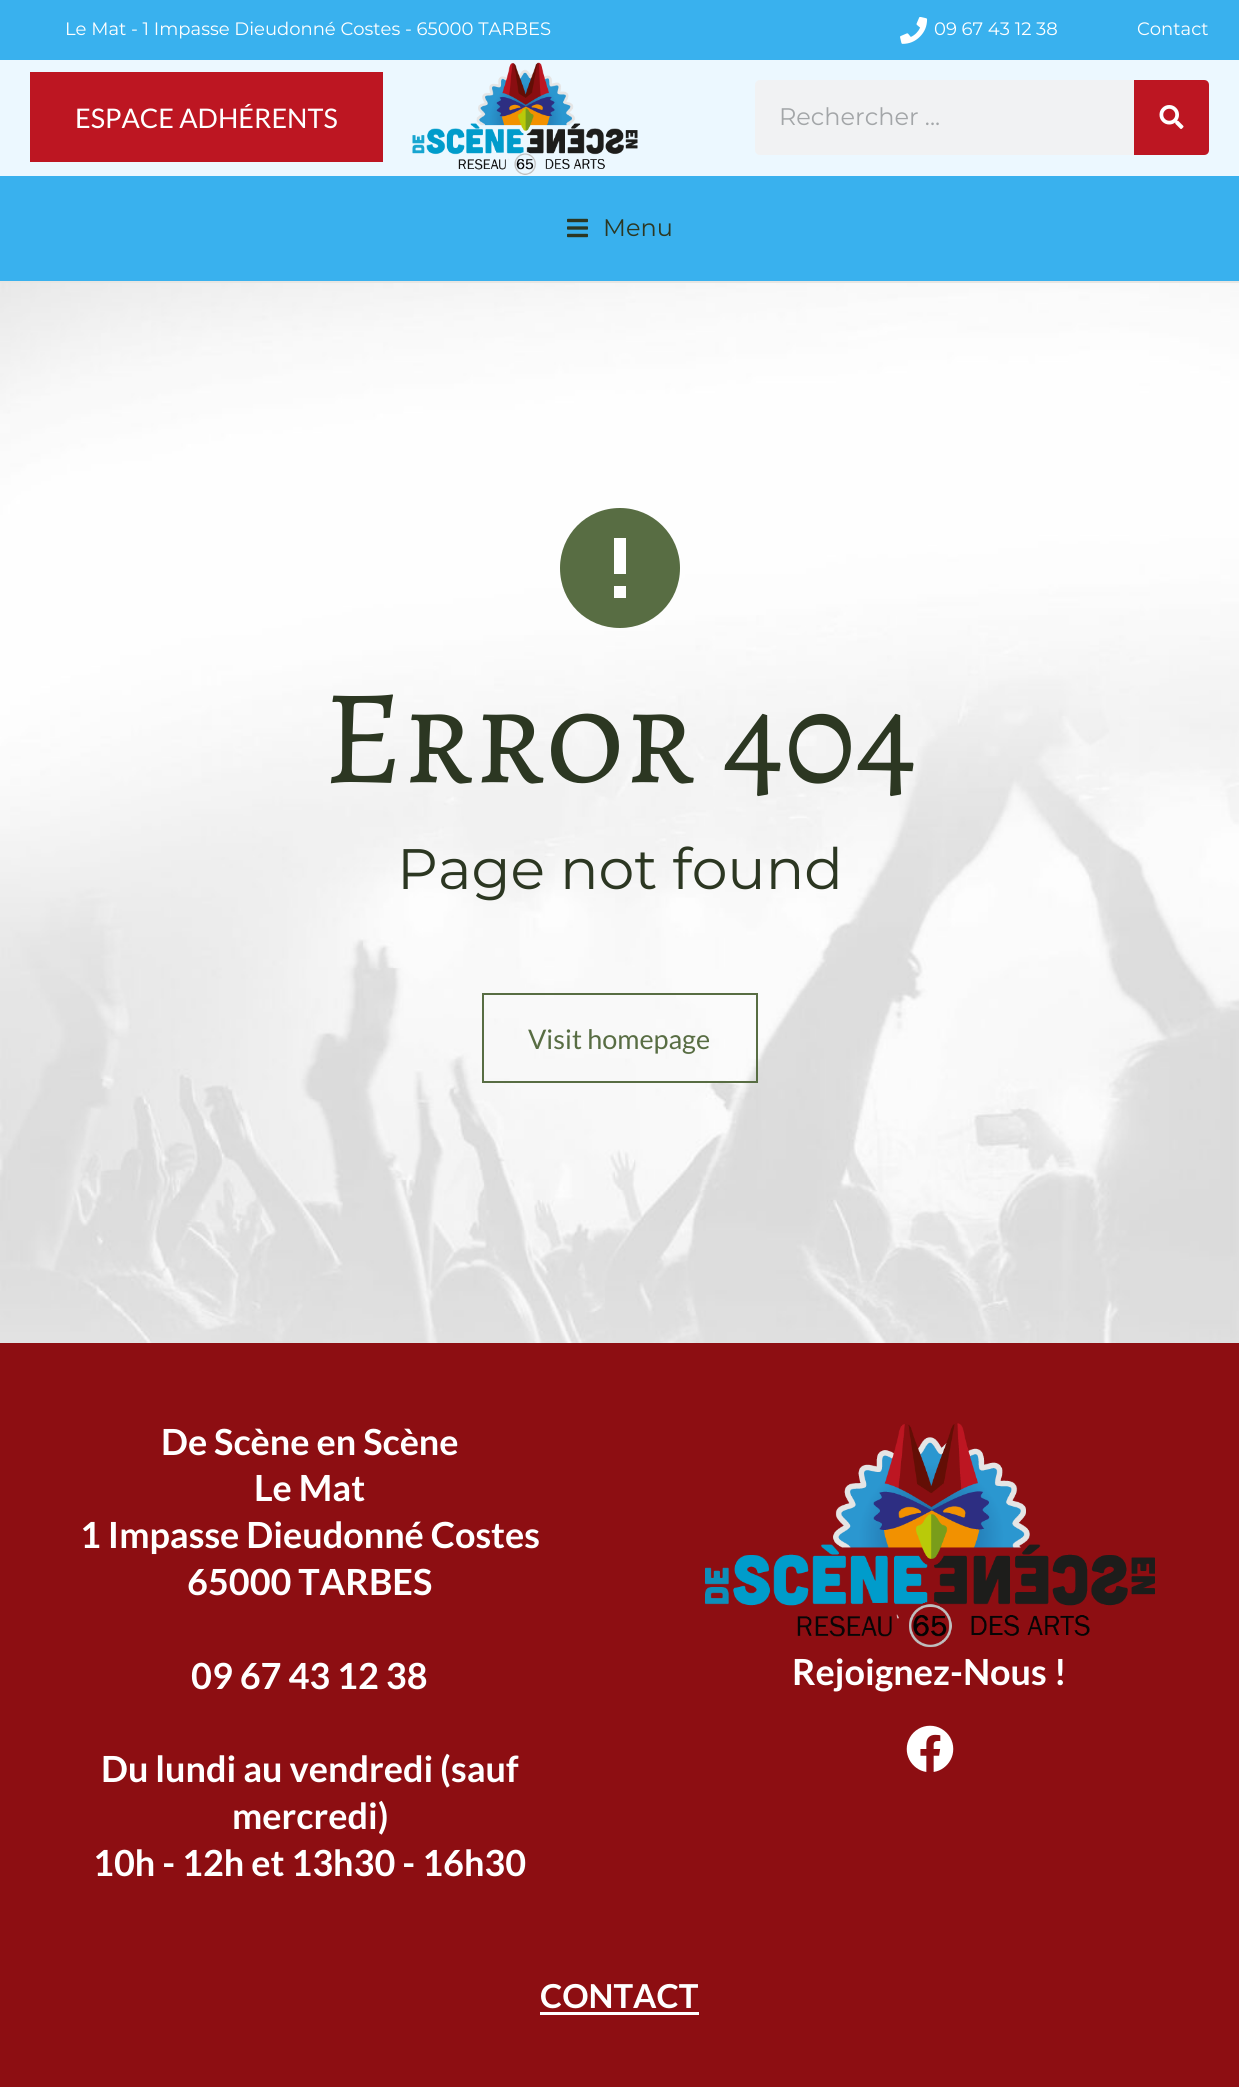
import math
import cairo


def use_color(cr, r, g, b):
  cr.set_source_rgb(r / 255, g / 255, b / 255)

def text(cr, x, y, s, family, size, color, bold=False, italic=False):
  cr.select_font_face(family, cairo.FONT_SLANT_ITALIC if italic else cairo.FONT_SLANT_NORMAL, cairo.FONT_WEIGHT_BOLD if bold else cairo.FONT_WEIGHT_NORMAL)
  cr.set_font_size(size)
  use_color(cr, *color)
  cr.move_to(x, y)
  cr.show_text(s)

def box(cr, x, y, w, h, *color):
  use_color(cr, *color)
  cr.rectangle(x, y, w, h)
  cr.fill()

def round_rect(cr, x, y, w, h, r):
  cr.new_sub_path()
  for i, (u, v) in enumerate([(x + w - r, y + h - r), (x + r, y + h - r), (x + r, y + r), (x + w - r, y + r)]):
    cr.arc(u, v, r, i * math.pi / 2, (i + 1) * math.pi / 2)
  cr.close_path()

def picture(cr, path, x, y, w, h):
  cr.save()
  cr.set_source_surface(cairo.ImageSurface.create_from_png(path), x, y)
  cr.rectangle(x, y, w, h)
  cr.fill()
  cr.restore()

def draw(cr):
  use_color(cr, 255, 255, 255)
  cr.paint()
  picture(cr, "img_01.png", 0, 283, 1239, 1060)
  box(cr, 0, 60, 1239, 116, 236, 248, 255)
  box(cr, 0, 281, 1239, 2, 231, 230, 227)
  box(cr, 0, 0, 1239, 60, 57, 177, 238)
  picture(cr, "img_02.png", 900, 17, 28, 27)
  box(cr, 30, 72, 353, 90, 189, 22, 34)
  picture(cr, "img_03.png", 412, 62, 226, 113)
  use_color(cr, 241, 242, 243)
  round_rect(cr, 755, 80, 454, 75, 5)
  cr.fill()
  use_color(cr, 189, 22, 34)
  cr.new_path()
  cr.move_to(1134, 80)
  cr.line_to(1204, 80)
  cr.curve_to(1207, 80, 1209, 82, 1209, 85)
  cr.line_to(1209, 150)
  cr.curve_to(1209, 153, 1207, 155, 1204, 155)
  cr.line_to(1134, 155)
  cr.close_path()
  cr.fill()
  picture(cr, "img_04.png", 1159, 105, 25, 24)
  box(cr, 0, 176, 1239, 105, 57, 177, 238)
  picture(cr, "img_05.png", 567, 218, 21, 20)
  use_color(cr, 88, 109, 67)
  cr.new_path()
  cr.move_to(620, 628)
  cr.curve_to(586, 628, 560, 602, 560, 568)
  cr.curve_to(560, 535, 586, 508, 620, 508)
  cr.curve_to(653, 508, 680, 535, 680, 568)
  cr.curve_to(680, 602, 653, 628, 620, 628)
  cr.close_path()
  cr.move_to(614, 586)
  cr.line_to(614, 598)
  cr.line_to(626, 598)
  cr.line_to(626, 586)
  cr.close_path()
  cr.move_to(614, 538)
  cr.line_to(614, 574)
  cr.line_to(626, 574)
  cr.line_to(626, 538)
  cr.close_path()
  cr.fill()
  cr.rectangle(483, 994, 274, 88)
  cr.stroke()
  box(cr, 0, 1343, 1239, 744, 141, 14, 18)
  picture(cr, "img_06.png", 705, 1423, 450, 225)
  picture(cr, "img_07.png", 906, 1725, 48, 47)
  box(cr, 540, 2012, 159, 3, 255, 255, 255)
  text(cr, 65, 35, "Le Mat - 1 Impasse Dieudonné Costes - 65000 TARBES", "Montserrat", 18, (255, 255, 255))
  text(cr, 934, 35, "09 67 43 12 38", "Montserrat", 18, (255, 255, 255))
  text(cr, 1137, 35, "Contact", "Montserrat", 18, (255, 255, 255))
  text(cr, 75, 128, "ESPACE ADHÉRENTS", "Lato", 27, (255, 255, 255))
  text(cr, 779, 125, "Rechercher ...", "Montserrat", 24, (163, 166, 168))
  text(cr, 603, 236, "Menu", "Montserrat", 24, (44, 55, 34))
  text(cr, 323, 782, "Error 404", "Alegreya SC", 135, (44, 55, 34))
  text(cr, 397, 889, "Page not found", "Montserrat", 57, (44, 55, 34))
  text(cr, 528, 1049, "Visit homepage", "Lato", 27, (88, 109, 67))
  text(cr, 161, 1455, "De Scène en Scène", "Lato", 36, (255, 255, 255), bold=True)
  text(cr, 254, 1501, "Le Mat", "Lato", 36, (255, 255, 255), bold=True)
  text(cr, 80, 1548, "1 Impasse Dieudonné Costes", "Lato", 36, (255, 255, 255), bold=True)
  text(cr, 187, 1595, "65000 TARBES", "Lato", 36, (255, 255, 255), bold=True)
  text(cr, 191, 1689, "09 67 43 12 38", "Lato", 36, (255, 255, 255), bold=True)
  text(cr, 101, 1782, "Du lundi au vendredi (sauf", "Lato", 36, (255, 255, 255), bold=True)
  text(cr, 232, 1829, "mercredi)", "Lato", 36, (255, 255, 255), bold=True)
  text(cr, 93, 1876, "10h - 12h et 13h30 - 16h30", "Lato", 36, (255, 255, 255), bold=True)
  text(cr, 792, 1685, "Rejoignez-Nous !", "Lato", 36, (255, 255, 255), bold=True)
  text(cr, 540, 2008, "CONTACT", "Lato", 33, (255, 255, 255), bold=True)


surface = cairo.ImageSurface(cairo.FORMAT_RGB24, 1239, 2087)
cr = cairo.Context(surface)
options = cairo.FontOptions()
options.set_hint_metrics(cairo.HINT_METRICS_OFF)
options.set_hint_style(cairo.HINT_STYLE_NONE)
cr.set_font_options(options)
cr.set_miter_limit(4)
draw(cr)
surface.write_to_png("out.png")
